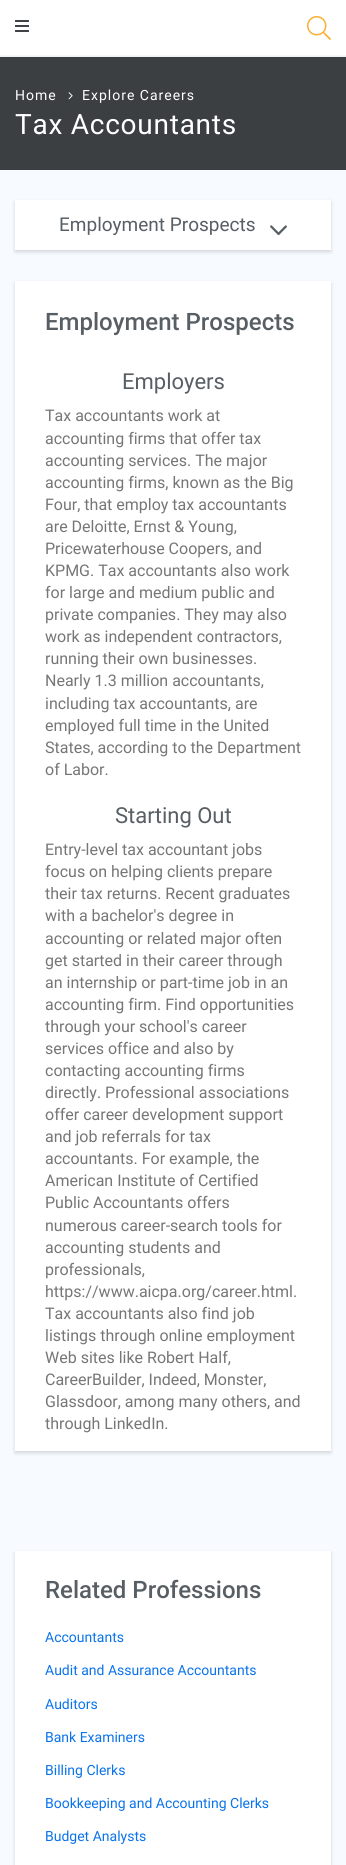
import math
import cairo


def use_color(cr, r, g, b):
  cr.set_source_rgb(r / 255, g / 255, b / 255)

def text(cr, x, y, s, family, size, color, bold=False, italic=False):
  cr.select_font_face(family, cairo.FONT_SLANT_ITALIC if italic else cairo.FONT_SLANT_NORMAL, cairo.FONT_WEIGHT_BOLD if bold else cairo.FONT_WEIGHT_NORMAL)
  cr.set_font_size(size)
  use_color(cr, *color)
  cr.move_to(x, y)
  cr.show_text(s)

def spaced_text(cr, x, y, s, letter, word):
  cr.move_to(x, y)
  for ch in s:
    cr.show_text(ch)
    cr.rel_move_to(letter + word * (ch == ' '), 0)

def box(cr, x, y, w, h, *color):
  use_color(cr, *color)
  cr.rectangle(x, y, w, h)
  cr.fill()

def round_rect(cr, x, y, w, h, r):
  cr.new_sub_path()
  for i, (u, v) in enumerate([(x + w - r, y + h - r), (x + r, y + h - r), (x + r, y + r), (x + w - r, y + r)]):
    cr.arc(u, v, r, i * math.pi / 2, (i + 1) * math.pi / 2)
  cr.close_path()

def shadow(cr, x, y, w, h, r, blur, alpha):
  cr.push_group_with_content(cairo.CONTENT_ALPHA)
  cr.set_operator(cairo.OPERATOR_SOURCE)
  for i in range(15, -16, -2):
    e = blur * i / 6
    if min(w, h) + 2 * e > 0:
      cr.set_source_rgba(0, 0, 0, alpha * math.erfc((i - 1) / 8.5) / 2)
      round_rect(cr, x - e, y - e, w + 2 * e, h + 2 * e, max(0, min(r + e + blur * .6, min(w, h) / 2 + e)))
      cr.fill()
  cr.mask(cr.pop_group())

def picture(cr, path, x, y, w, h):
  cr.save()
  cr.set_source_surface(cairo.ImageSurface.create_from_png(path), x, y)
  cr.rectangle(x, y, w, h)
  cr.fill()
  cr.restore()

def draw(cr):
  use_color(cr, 255, 255, 255)
  cr.paint()
  box(cr, 0, 56, 346, 1, 240, 241, 241)
  box(cr, 0, 55, 346, 1, 246, 246, 245)
  picture(cr, "img_01.png", 15, 20, 14, 12)
  picture(cr, "img_02.png", 307, 16, 24, 24)
  box(cr, 0, 57, 346, 113, 59, 63, 66)
  picture(cr, "img_03.png", 68, 92, 5, 8)
  box(cr, 0, 170, 346, 1695, 247, 251, 255)
  use_color(cr, 0, 0, 0)
  shadow(cr, 15, 202, 316, 50, 0, 2, 0.15)
  box(cr, 15, 200, 316, 50, 255, 255, 255)
  picture(cr, "img_04.png", 270, 225, 17, 11)
  use_color(cr, 0, 0, 0)
  shadow(cr, 15, 283, 316, 1170, 0, 2, 0.15)
  box(cr, 15, 281, 316, 1170, 255, 255, 255)
  use_color(cr, 0, 0, 0)
  shadow(cr, 15, 1553, 316, 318, 0, 2, 0.15)
  box(cr, 15, 1551, 316, 314, 255, 255, 255)
  cr.select_font_face("Roboto")
  cr.set_font_size(14)
  spaced_text(cr, 15, 100, "Home", 1, 0)
  spaced_text(cr, 82, 100, "Explore Careers", 1, 0)
  cr.set_font_size(28)
  spaced_text(cr, 15, 134, "Tax Accountants", 0.75, 0)
  text(cr, 59, 231, "Employment Prospects", "Roboto", 19, (88, 95, 100))
  text(cr, 45, 330, "Employment Prospects", "Roboto Medium", 24, (88, 95, 100))
  text(cr, 122, 389, "Employers", "Roboto", 22, (88, 95, 100))
  text(cr, 45, 421, "Tax accountants work at", "Roboto", 16, (118, 118, 118))
  text(cr, 45, 444, "accounting firms that offer tax", "Roboto", 16, (118, 118, 118))
  text(cr, 45, 466, "accounting services. The major", "Roboto", 16, (118, 118, 118))
  text(cr, 45, 488, "accounting firms, known as the Big", "Roboto", 16, (118, 118, 118))
  text(cr, 45, 510, "Four, that employ tax accountants", "Roboto", 16, (118, 118, 118))
  text(cr, 45, 532, "are Deloitte, Ernst & Young,", "Roboto", 16, (118, 118, 118))
  text(cr, 45, 554, "Pricewaterhouse Coopers, and", "Roboto", 16, (118, 118, 118))
  text(cr, 45, 576, "KPMG. Tax accountants also work", "Roboto", 16, (118, 118, 118))
  text(cr, 45, 598, "for large and medium public and", "Roboto", 16, (118, 118, 118))
  text(cr, 45, 620, "private companies. They may also", "Roboto", 16, (118, 118, 118))
  text(cr, 45, 642, "work as independent contractors,", "Roboto", 16, (118, 118, 118))
  text(cr, 45, 664, "running their own businesses.", "Roboto", 16, (118, 118, 118))
  text(cr, 45, 686, "Nearly 1.3 million accountants,", "Roboto", 16, (118, 118, 118))
  text(cr, 45, 709, "including tax accountants, are", "Roboto", 16, (118, 118, 118))
  text(cr, 45, 731, "employed full time in the United", "Roboto", 16, (118, 118, 118))
  text(cr, 45, 753, "States, according to the Department", "Roboto", 16, (118, 118, 118))
  text(cr, 45, 775, "of Labor.", "Roboto", 16, (118, 118, 118))
  text(cr, 115, 823, "Starting Out", "Roboto", 22, (88, 95, 100))
  text(cr, 45, 855, "Entry-level tax accountant jobs", "Roboto", 16, (118, 118, 118))
  text(cr, 45, 877, "focus on helping clients prepare", "Roboto", 16, (118, 118, 118))
  text(cr, 45, 899, "their tax returns. Recent graduates", "Roboto", 16, (118, 118, 118))
  text(cr, 45, 921, "with a bachelor's degree in", "Roboto", 16, (118, 118, 118))
  text(cr, 45, 944, "accounting or related major often", "Roboto", 16, (118, 118, 118))
  text(cr, 45, 966, "get started in their career through", "Roboto", 16, (118, 118, 118))
  text(cr, 45, 988, "an internship or part-time job in an", "Roboto", 16, (118, 118, 118))
  text(cr, 45, 1010, "accounting firm. Find opportunities", "Roboto", 16, (118, 118, 118))
  text(cr, 45, 1032, "through your school's career", "Roboto", 16, (118, 118, 118))
  text(cr, 45, 1054, "services office and also by", "Roboto", 16, (118, 118, 118))
  text(cr, 45, 1076, "contacting accounting firms", "Roboto", 16, (118, 118, 118))
  text(cr, 45, 1098, "directly. Professional associations", "Roboto", 16, (118, 118, 118))
  text(cr, 45, 1120, "offer career development support", "Roboto", 16, (118, 118, 118))
  text(cr, 45, 1142, "and job referrals for tax", "Roboto", 16, (118, 118, 118))
  text(cr, 45, 1164, "accountants. For example, the", "Roboto", 16, (118, 118, 118))
  text(cr, 45, 1186, "American Institute of Certified", "Roboto", 16, (118, 118, 118))
  text(cr, 45, 1208, "Public Accountants offers", "Roboto", 16, (118, 118, 118))
  text(cr, 45, 1231, "numerous career-search tools for", "Roboto", 16, (118, 118, 118))
  text(cr, 45, 1253, "accounting students and", "Roboto", 16, (118, 118, 118))
  text(cr, 45, 1275, "professionals,", "Roboto", 16, (118, 118, 118))
  text(cr, 45, 1297, "https://www.aicpa.org/career.html.", "Roboto", 16, (118, 118, 118))
  text(cr, 45, 1319, "Tax accountants also find job", "Roboto", 16, (118, 118, 118))
  text(cr, 45, 1341, "listings through online employment", "Roboto", 16, (118, 118, 118))
  text(cr, 45, 1363, "Web sites like Robert Half,", "Roboto", 16, (118, 118, 118))
  text(cr, 45, 1385, "CareerBuilder, Indeed, Monster,", "Roboto", 16, (118, 118, 118))
  text(cr, 45, 1407, "Glassdoor, among many others, and", "Roboto", 16, (118, 118, 118))
  text(cr, 45, 1429, "through LinkedIn.", "Roboto", 16, (118, 118, 118))
  text(cr, 45, 1598, "Related Professions", "Roboto Medium", 24, (88, 95, 100))
  text(cr, 45, 1642, "Accountants", "Roboto", 14, (10, 115, 235))
  text(cr, 45, 1675, "Audit and Assurance Accountants", "Roboto", 14, (10, 115, 235))
  text(cr, 45, 1709, "Auditors", "Roboto", 14, (10, 115, 235))
  text(cr, 45, 1742, "Bank Examiners", "Roboto", 14, (10, 115, 235))
  text(cr, 45, 1775, "Billing Clerks", "Roboto", 14, (10, 115, 235))
  text(cr, 45, 1808, "Bookkeeping and Accounting Clerks", "Roboto", 14, (10, 115, 235))
  text(cr, 45, 1841, "Budget Analysts", "Roboto", 14, (10, 115, 235))


surface = cairo.ImageSurface(cairo.FORMAT_RGB24, 346, 1865)
cr = cairo.Context(surface)
options = cairo.FontOptions()
options.set_hint_metrics(cairo.HINT_METRICS_OFF)
options.set_hint_style(cairo.HINT_STYLE_NONE)
cr.set_font_options(options)
cr.set_miter_limit(4)
draw(cr)
surface.write_to_png("out.png")
